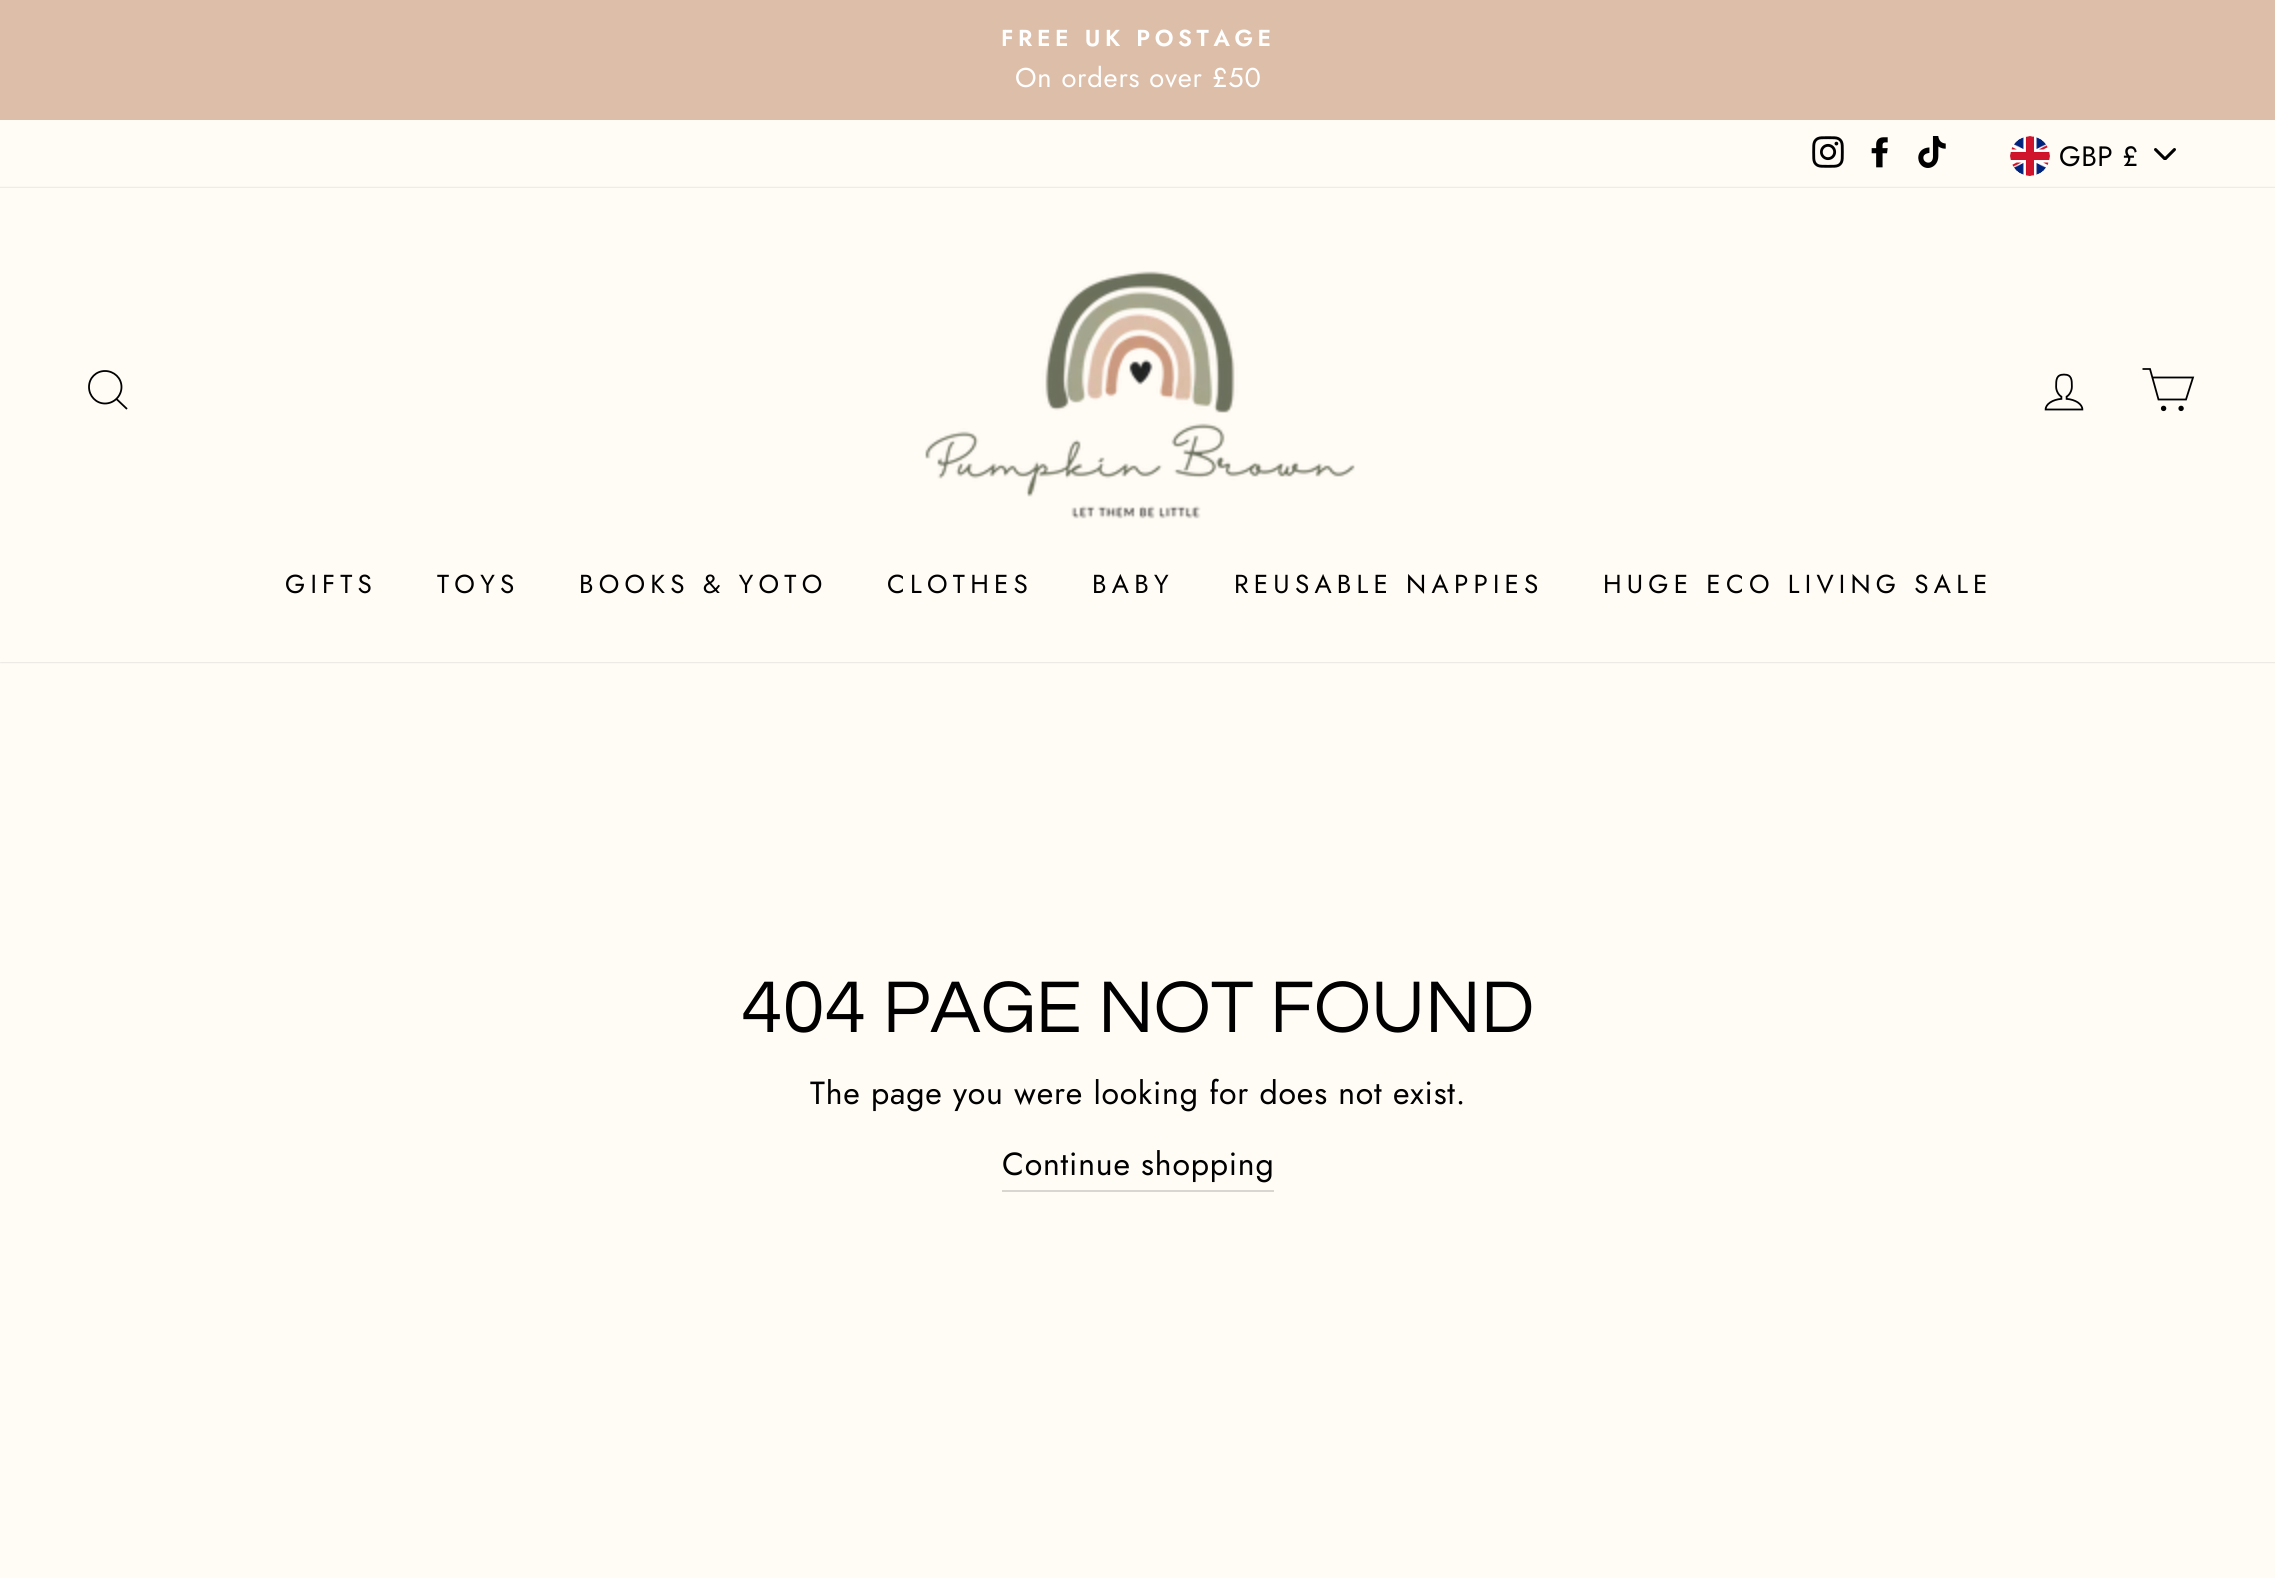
import math
import cairo


def use_color(cr, r, g, b):
  cr.set_source_rgb(r / 255, g / 255, b / 255)

def text(cr, x, y, s, family, size, color, bold=False, italic=False):
  cr.select_font_face(family, cairo.FONT_SLANT_ITALIC if italic else cairo.FONT_SLANT_NORMAL, cairo.FONT_WEIGHT_BOLD if bold else cairo.FONT_WEIGHT_NORMAL)
  cr.set_font_size(size)
  use_color(cr, *color)
  cr.move_to(x, y)
  cr.show_text(s)

def spaced_text(cr, x, y, s, letter, word):
  cr.move_to(x, y)
  for ch in s:
    cr.show_text(ch)
    cr.rel_move_to(letter + word * (ch == ' '), 0)

def box(cr, x, y, w, h, *color):
  use_color(cr, *color)
  cr.rectangle(x, y, w, h)
  cr.fill()

def round_rect(cr, x, y, w, h, r):
  cr.new_sub_path()
  for i, (u, v) in enumerate([(x + w - r, y + h - r), (x + r, y + h - r), (x + r, y + r), (x + w - r, y + r)]):
    cr.arc(u, v, r, i * math.pi / 2, (i + 1) * math.pi / 2)
  cr.close_path()

def shadow(cr, x, y, w, h, r, blur, alpha):
  cr.push_group_with_content(cairo.CONTENT_ALPHA)
  cr.set_operator(cairo.OPERATOR_SOURCE)
  for i in range(15, -16, -2):
    e = blur * i / 6
    if min(w, h) + 2 * e > 0:
      cr.set_source_rgba(0, 0, 0, alpha * math.erfc((i - 1) / 8.5) / 2)
      round_rect(cr, x - e, y - e, w + 2 * e, h + 2 * e, max(0, min(r + e + blur * .6, min(w, h) / 2 + e)))
      cr.fill()
  cr.mask(cr.pop_group())

def picture(cr, path, x, y, w, h):
  cr.save()
  cr.set_source_surface(cairo.ImageSurface.create_from_png(path), x, y)
  cr.rectangle(x, y, w, h)
  cr.fill()
  cr.restore()

def draw(cr):
  use_color(cr, 255, 251, 245)
  cr.paint()
  box(cr, 0, 0, 2275, 120, 221, 190, 169)
  picture(cr, "img_01.png", 1812, 136, 32, 32)
  picture(cr, "img_02.png", 1871, 137, 17, 31)
  picture(cr, "img_03.png", 1918, 136, 28, 32)
  picture(cr, "img_04.png", 2154, 148, 22, 12)
  picture(cr, "img_05.png", 2010, 136, 40, 40)
  cr.save()
  cr.set_fill_rule(cairo.FILL_RULE_EVEN_ODD)
  cr.new_path()
  cr.move_to(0, 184)
  cr.line_to(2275, 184)
  cr.line_to(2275, 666)
  cr.line_to(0, 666)
  cr.close_path()
  cr.move_to(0, 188)
  cr.line_to(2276, 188)
  cr.line_to(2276, 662)
  cr.line_to(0, 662)
  cr.close_path()
  cr.clip()
  use_color(cr, 0, 0, 0)
  shadow(cr, 0, 188, 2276, 474, 0, 1, 0.2)
  cr.restore()
  cr.new_path()
  cr.move_to(121.5, 387)
  cr.curve_to(121.5, 396, 114, 403.5, 105, 403.5)
  cr.curve_to(96, 403.5, 89, 396, 89, 387)
  cr.curve_to(89, 378, 96, 371, 105, 371)
  cr.curve_to(114, 371, 121.5, 378, 121.5, 387)
  cr.close_path()
  cr.move_to(127, 409)
  cr.line_to(116.5, 399)
  use_color(cr, 0, 0, 0)
  cr.set_line_width(1.8)
  cr.stroke()
  picture(cr, "img_06.png", 925, 271, 430, 248)
  picture(cr, "img_07.png", 2044, 373, 40, 38)
  cr.new_path()
  cr.move_to(2152, 377.5)
  cr.line_to(2193, 377.5)
  cr.line_to(2186, 399.5)
  cr.line_to(2158.5, 399.5)
  cr.line_to(2150, 369)
  cr.line_to(2142.5, 369)
  cr.stroke()
  cr.arc(2163.6, 408.4, 1.8, 0, 2 * math.pi)
  cr.fill_preserve()
  cr.stroke()
  cr.arc(2181.1, 408.4, 1.8, 0, 2 * math.pi)
  cr.fill_preserve()
  cr.stroke()
  box(cr, 1002, 1190, 272, 2, 217, 213, 208)
  cr.select_font_face("Jost SemiBold")
  cr.set_font_size(23.1)
  use_color(cr, 255, 255, 255)
  spaced_text(cr, 1001, 46, "FREE UK POSTAGE", 4.6, 0)
  cr.select_font_face("Jost")
  cr.set_font_size(27.25)
  spaced_text(cr, 1015, 87, "On orders over £50", 0.8, 0)
  cr.set_font_size(28)
  use_color(cr, 0, 0, 0)
  spaced_text(cr, 2059, 166, "GBP £", 0.5, 0)
  cr.set_font_size(26)
  spaced_text(cr, 285, 593, "GIFTS", 5.25, 0)
  spaced_text(cr, 437, 593, "TOYS", 5.25, 0)
  spaced_text(cr, 579, 593, "BOOKS & YOTO", 5.25, 0)
  spaced_text(cr, 887, 593, "CLOTHES", 5.25, 0)
  spaced_text(cr, 1092, 593, "BABY", 5.25, 0)
  spaced_text(cr, 1234, 593, "REUSABLE NAPPIES", 5.25, 0)
  spaced_text(cr, 1603, 593, "HUGE ECO LIVING SALE", 5.25, 0)
  text(cr, 741, 1032, "404 PAGE NOT FOUND", "Questrial", 76, (0, 0, 0))
  cr.select_font_face("Jost")
  cr.set_font_size(32)
  spaced_text(cr, 810, 1104, "The page you were looking for does not exist.", 0.8, 0)
  spaced_text(cr, 1002, 1175, "Continue shopping", 0.8, 0)


surface = cairo.ImageSurface(cairo.FORMAT_RGB24, 2275, 1578)
cr = cairo.Context(surface)
options = cairo.FontOptions()
options.set_hint_metrics(cairo.HINT_METRICS_OFF)
options.set_hint_style(cairo.HINT_STYLE_NONE)
cr.set_font_options(options)
cr.set_miter_limit(4)
draw(cr)
surface.write_to_png("out.png")
